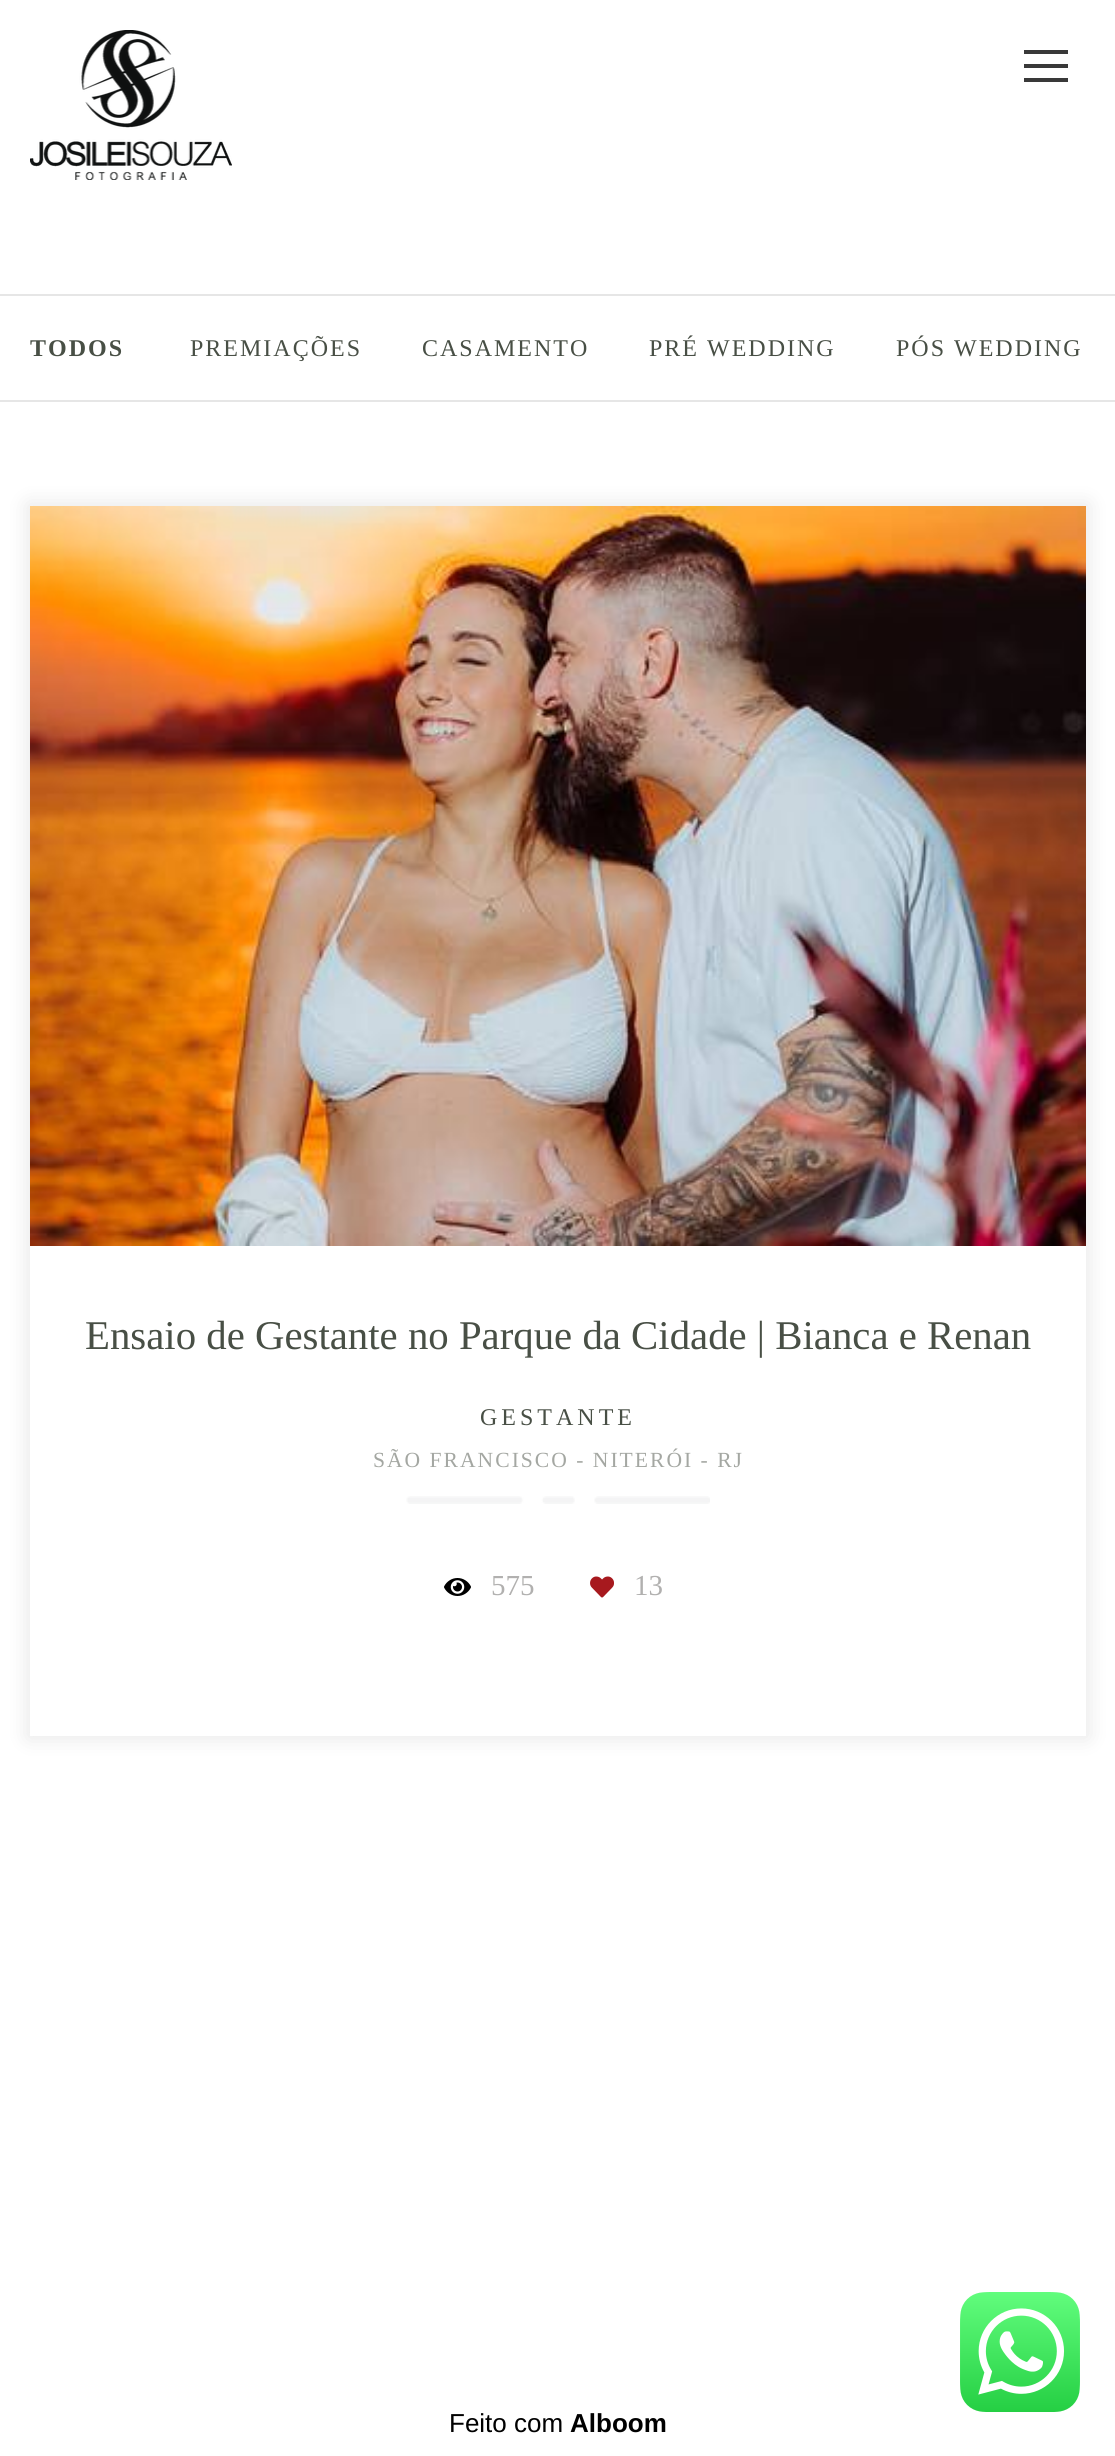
import math
import cairo


def use_color(cr, r, g, b):
  cr.set_source_rgb(r / 255, g / 255, b / 255)

def text(cr, x, y, s, family, size, color, bold=False, italic=False):
  cr.select_font_face(family, cairo.FONT_SLANT_ITALIC if italic else cairo.FONT_SLANT_NORMAL, cairo.FONT_WEIGHT_BOLD if bold else cairo.FONT_WEIGHT_NORMAL)
  cr.set_font_size(size)
  use_color(cr, *color)
  cr.move_to(x, y)
  cr.show_text(s)

def spaced_text(cr, x, y, s, letter, word):
  cr.move_to(x, y)
  for ch in s:
    cr.show_text(ch)
    cr.rel_move_to(letter + word * (ch == ' '), 0)

def box(cr, x, y, w, h, *color):
  use_color(cr, *color)
  cr.rectangle(x, y, w, h)
  cr.fill()

def round_rect(cr, x, y, w, h, r):
  cr.new_sub_path()
  for i, (u, v) in enumerate([(x + w - r, y + h - r), (x + r, y + h - r), (x + r, y + r), (x + w - r, y + r)]):
    cr.arc(u, v, r, i * math.pi / 2, (i + 1) * math.pi / 2)
  cr.close_path()

def shadow(cr, x, y, w, h, r, blur, alpha):
  cr.push_group_with_content(cairo.CONTENT_ALPHA)
  cr.set_operator(cairo.OPERATOR_SOURCE)
  for i in range(15, -16, -2):
    e = blur * i / 6
    if min(w, h) + 2 * e > 0:
      cr.set_source_rgba(0, 0, 0, alpha * math.erfc((i - 1) / 8.5) / 2)
      round_rect(cr, x - e, y - e, w + 2 * e, h + 2 * e, max(0, min(r + e + blur * .6, min(w, h) / 2 + e)))
      cr.fill()
  cr.mask(cr.pop_group())

def picture(cr, path, x, y, w, h):
  cr.save()
  cr.set_source_surface(cairo.ImageSurface.create_from_png(path), x, y)
  cr.rectangle(x, y, w, h)
  cr.fill()
  cr.restore()

def draw(cr):
  use_color(cr, 255, 255, 255)
  cr.paint()
  picture(cr, "img_01.png", 30, 30, 202, 150)
  box(cr, 1024, 50, 44, 4, 57, 57, 57)
  box(cr, 1024, 64, 44, 4, 57, 57, 57)
  box(cr, 1024, 78, 44, 4, 57, 57, 57)
  box(cr, 0, 294, 1115, 2, 230, 230, 230)
  box(cr, 0, 400, 1115, 2, 230, 230, 230)
  cr.save()
  cr.set_fill_rule(cairo.FILL_RULE_EVEN_ODD)
  cr.new_path()
  cr.move_to(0, 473)
  cr.line_to(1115, 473)
  cr.line_to(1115, 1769)
  cr.line_to(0, 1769)
  cr.close_path()
  cr.move_to(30, 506)
  cr.line_to(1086, 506)
  cr.line_to(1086, 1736)
  cr.line_to(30, 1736)
  cr.close_path()
  cr.clip()
  use_color(cr, 0, 0, 0)
  shadow(cr, 28, 504, 1060, 1234, 0, 10, 0.1)
  cr.restore()
  picture(cr, "img_02.png", 30, 506, 1056, 740)
  picture(cr, "img_03.png", 406, 1496, 304, 8)
  picture(cr, "img_04.png", 444, 1578, 27, 18)
  picture(cr, "img_05.png", 590, 1576, 24, 22)
  picture(cr, "img_06.png", 960, 2292, 120, 120)
  cr.select_font_face("Liberation Serif", cairo.FONT_SLANT_NORMAL, cairo.FONT_WEIGHT_BOLD)
  cr.set_font_size(24)
  use_color(cr, 72, 79, 69)
  spaced_text(cr, 30, 356, "TODOS", 2, 0)
  cr.select_font_face("Liberation Serif")
  spaced_text(cr, 190, 356, "PREMIAÇÕES", 2, 0)
  spaced_text(cr, 422, 356, "CASAMENTO", 2, 0)
  spaced_text(cr, 649, 356, "PRÉ WEDDING", 2, 0)
  spaced_text(cr, 896, 356, "PÓS WEDDING", 2, 0)
  text(cr, 85, 1349, "Ensaio de Gestante no Parque da Cidade | Bianca e Renan", "Liberation Serif", 40.8, (72, 79, 69))
  cr.set_font_size(24)
  spaced_text(cr, 480, 1425, "GESTANTE", 4, 0)
  cr.set_font_size(21.6)
  use_color(cr, 164, 167, 162)
  spaced_text(cr, 373, 1467, "SÃO FRANCISCO - NITERÓI - RJ", 2, 0)
  text(cr, 491, 1595, "575", "Liberation Serif", 29, (177, 176, 175))
  text(cr, 634, 1595, "13", "Liberation Serif", 29, (177, 176, 175))
  text(cr, 449, 2432, "Feito com", "Liberation Sans", 26, (0, 0, 0))
  text(cr, 570, 2432, "Alboom", "Liberation Sans", 26, (0, 0, 0), bold=True)


surface = cairo.ImageSurface(cairo.FORMAT_RGB24, 1115, 2456)
cr = cairo.Context(surface)
options = cairo.FontOptions()
options.set_hint_metrics(cairo.HINT_METRICS_OFF)
options.set_hint_style(cairo.HINT_STYLE_NONE)
cr.set_font_options(options)
cr.set_miter_limit(4)
draw(cr)
surface.write_to_png("out.png")
